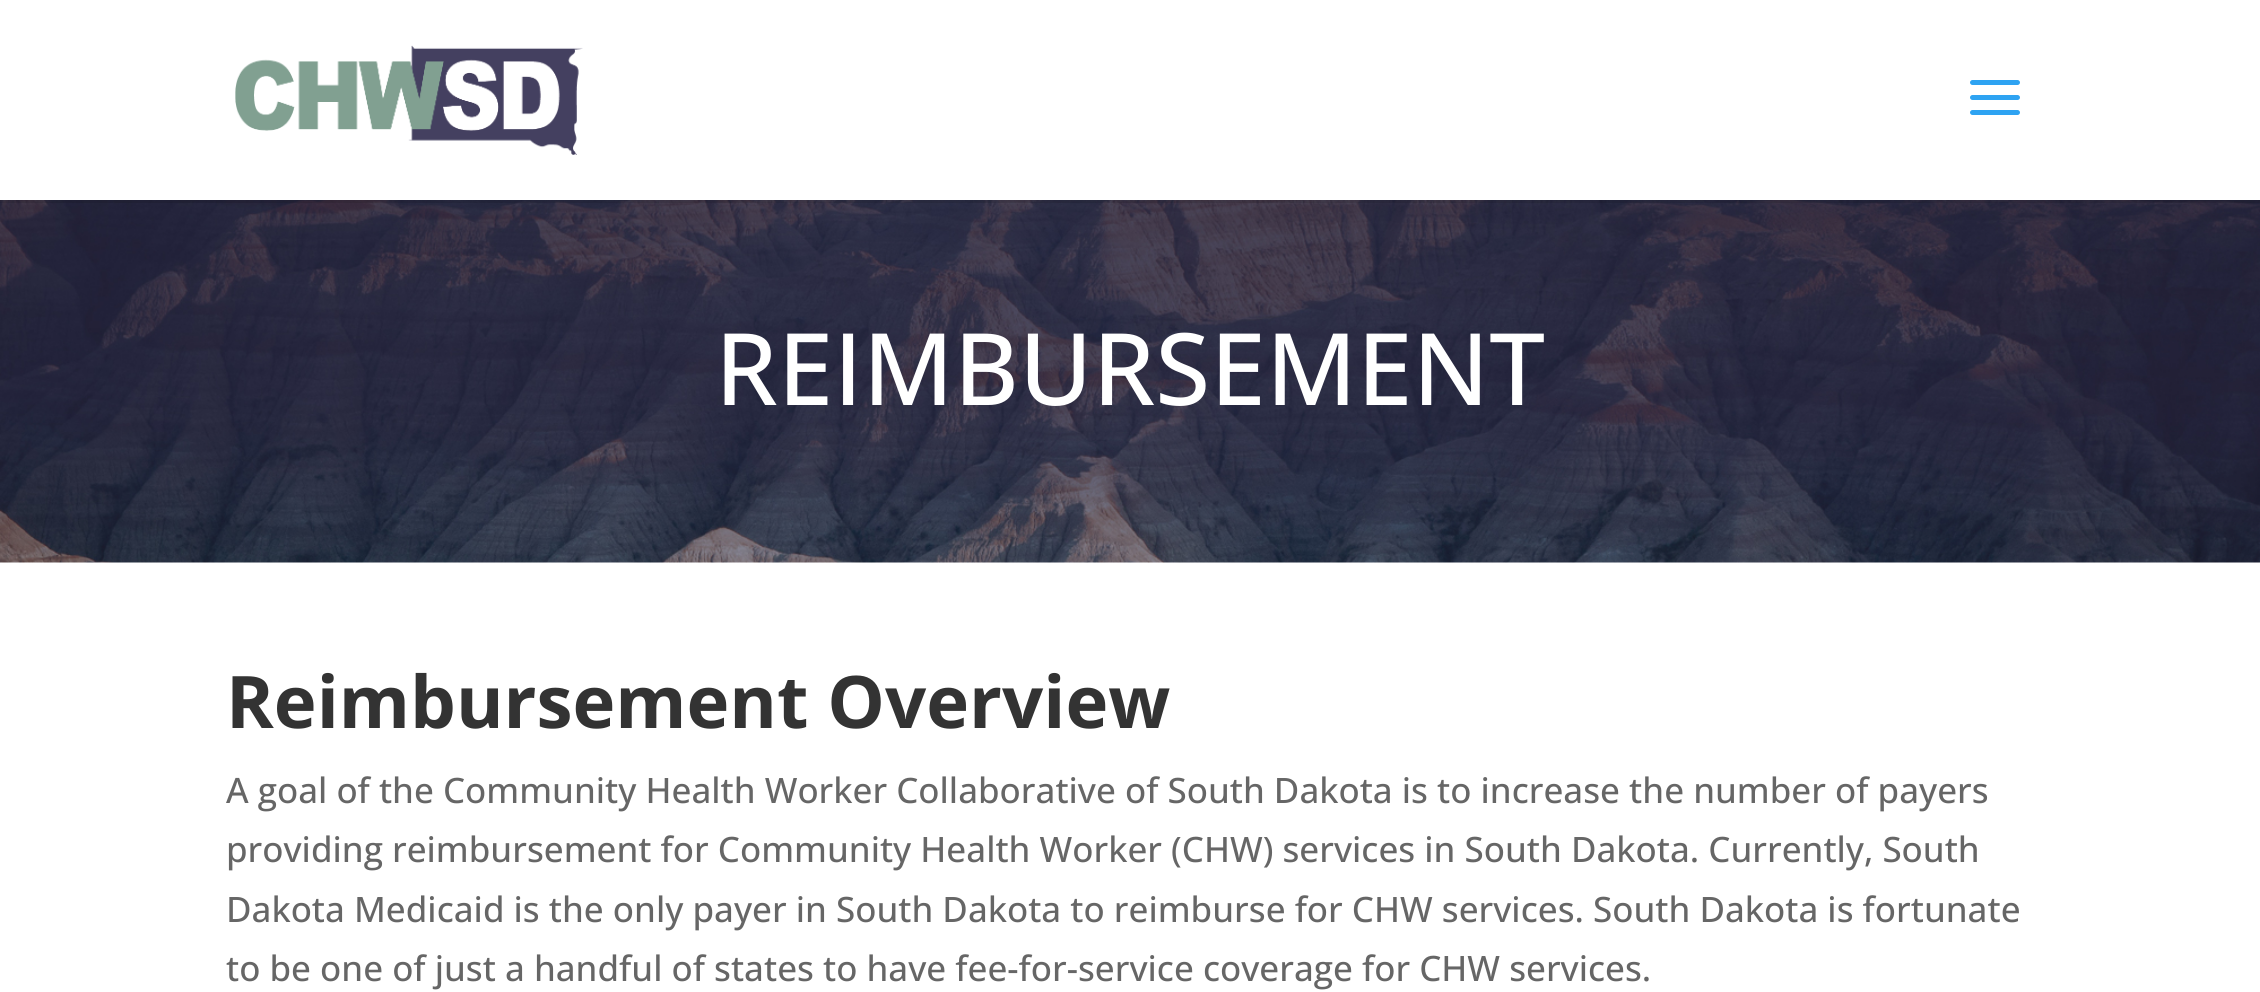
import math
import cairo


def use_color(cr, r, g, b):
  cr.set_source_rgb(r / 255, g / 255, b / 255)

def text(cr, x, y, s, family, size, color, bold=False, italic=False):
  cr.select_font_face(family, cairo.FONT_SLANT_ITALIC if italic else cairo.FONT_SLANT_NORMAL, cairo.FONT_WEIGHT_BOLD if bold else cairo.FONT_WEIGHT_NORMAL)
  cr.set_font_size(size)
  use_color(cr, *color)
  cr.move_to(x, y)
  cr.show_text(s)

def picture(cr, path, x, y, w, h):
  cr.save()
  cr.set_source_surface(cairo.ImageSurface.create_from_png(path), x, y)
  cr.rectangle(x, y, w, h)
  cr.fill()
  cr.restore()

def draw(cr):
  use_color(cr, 255, 255, 255)
  cr.paint()
  picture(cr, "img_03.png", 0, 200, 2260, 363)
  cr.set_source_rgba(0, 0, 0, 0.1)
  cr.rectangle(0, 200, 2260, 3)
  cr.fill()
  picture(cr, "img_01.png", 235, 45, 348, 110)
  picture(cr, "img_02.png", 1970, 80, 50, 35)
  text(cr, 715, 405, "REIMBURSEMENT", "Open Sans Medium", 100, (255, 255, 255))
  text(cr, 226, 728, "Reimbursement Overview", "Open Sans", 72.5, (51, 51, 51), bold=True)
  text(cr, 226, 803, "A goal of the Community Health Worker Collaborative of South Dakota is to increase the number of payers", "Open Sans Medium", 35, (102, 102, 102))
  text(cr, 226, 862, "providing reimbursement for Community Health Worker (CHW) services in South Dakota. Currently, South", "Open Sans Medium", 35, (102, 102, 102))
  text(cr, 226, 922, "Dakota Medicaid is the only payer in South Dakota to reimburse for CHW services. South Dakota is fortunate", "Open Sans Medium", 35, (102, 102, 102))
  text(cr, 226, 981, "to be one of just a handful of states to have fee-for-service coverage for CHW services.", "Open Sans Medium", 35, (102, 102, 102))


surface = cairo.ImageSurface(cairo.FORMAT_RGB24, 2260, 992)
cr = cairo.Context(surface)
options = cairo.FontOptions()
options.set_hint_metrics(cairo.HINT_METRICS_OFF)
options.set_hint_style(cairo.HINT_STYLE_NONE)
cr.set_font_options(options)
cr.set_miter_limit(4)
draw(cr)
surface.write_to_png("out.png")
